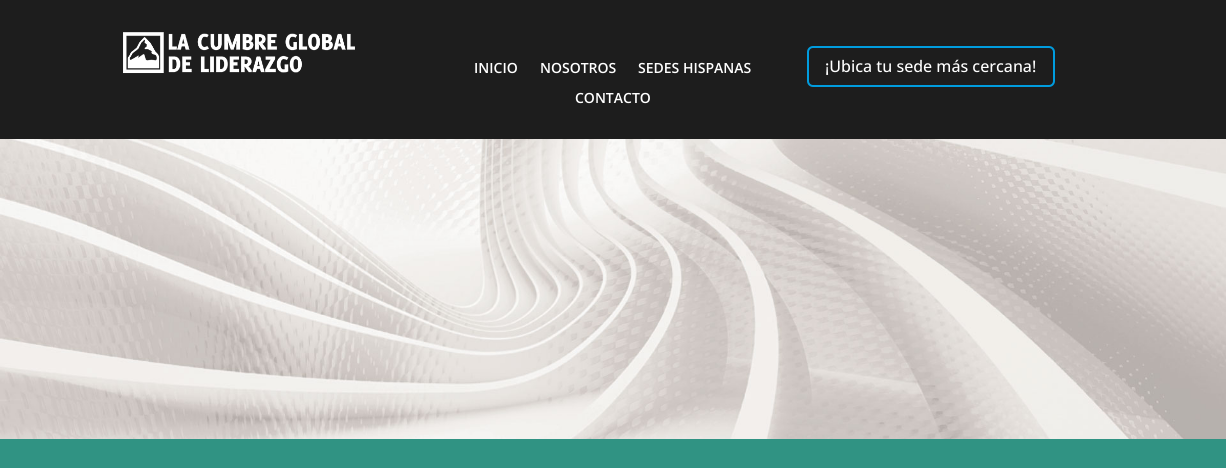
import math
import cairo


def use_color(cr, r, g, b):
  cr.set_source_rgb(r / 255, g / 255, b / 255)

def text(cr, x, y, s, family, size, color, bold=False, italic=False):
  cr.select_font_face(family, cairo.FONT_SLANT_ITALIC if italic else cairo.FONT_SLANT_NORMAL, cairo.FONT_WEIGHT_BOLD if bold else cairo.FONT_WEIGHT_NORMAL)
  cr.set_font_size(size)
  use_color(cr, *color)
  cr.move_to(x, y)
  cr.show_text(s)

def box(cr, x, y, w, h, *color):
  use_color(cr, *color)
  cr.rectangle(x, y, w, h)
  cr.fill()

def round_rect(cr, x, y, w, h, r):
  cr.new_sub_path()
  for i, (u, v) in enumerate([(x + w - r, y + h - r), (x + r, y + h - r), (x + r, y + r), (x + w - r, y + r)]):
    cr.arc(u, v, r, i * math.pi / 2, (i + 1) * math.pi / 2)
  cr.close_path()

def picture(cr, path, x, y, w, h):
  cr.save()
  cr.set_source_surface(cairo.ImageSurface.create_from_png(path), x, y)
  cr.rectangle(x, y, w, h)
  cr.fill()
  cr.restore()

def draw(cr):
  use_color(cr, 255, 255, 255)
  cr.paint()
  box(cr, 0, 0, 1226, 139, 29, 29, 29)
  picture(cr, "img_01.png", 123, 32, 232, 42)
  round_rect(cr, 808, 47, 246, 39, 5)
  use_color(cr, 0, 156, 222)
  cr.stroke()
  picture(cr, "img_02.png", 0, 139, 1226, 300)
  box(cr, 0, 439, 1226, 29, 48, 147, 131)
  text(cr, 474, 73, "INICIO", "Open Sans SemiBold", 14, (255, 255, 255))
  text(cr, 540, 73, "NOSOTROS", "Open Sans SemiBold", 14, (255, 255, 255))
  text(cr, 638, 73, "SEDES HISPANAS", "Open Sans SemiBold", 14, (255, 255, 255))
  text(cr, 575, 103, "CONTACTO", "Open Sans SemiBold", 14, (255, 255, 255))
  text(cr, 825, 72, "¡Ubica tu sede más cercana!", "Open Sans Medium", 16, (255, 255, 255))


surface = cairo.ImageSurface(cairo.FORMAT_RGB24, 1226, 468)
cr = cairo.Context(surface)
options = cairo.FontOptions()
options.set_hint_metrics(cairo.HINT_METRICS_OFF)
options.set_hint_style(cairo.HINT_STYLE_NONE)
cr.set_font_options(options)
cr.set_miter_limit(4)
draw(cr)
surface.write_to_png("out.png")
